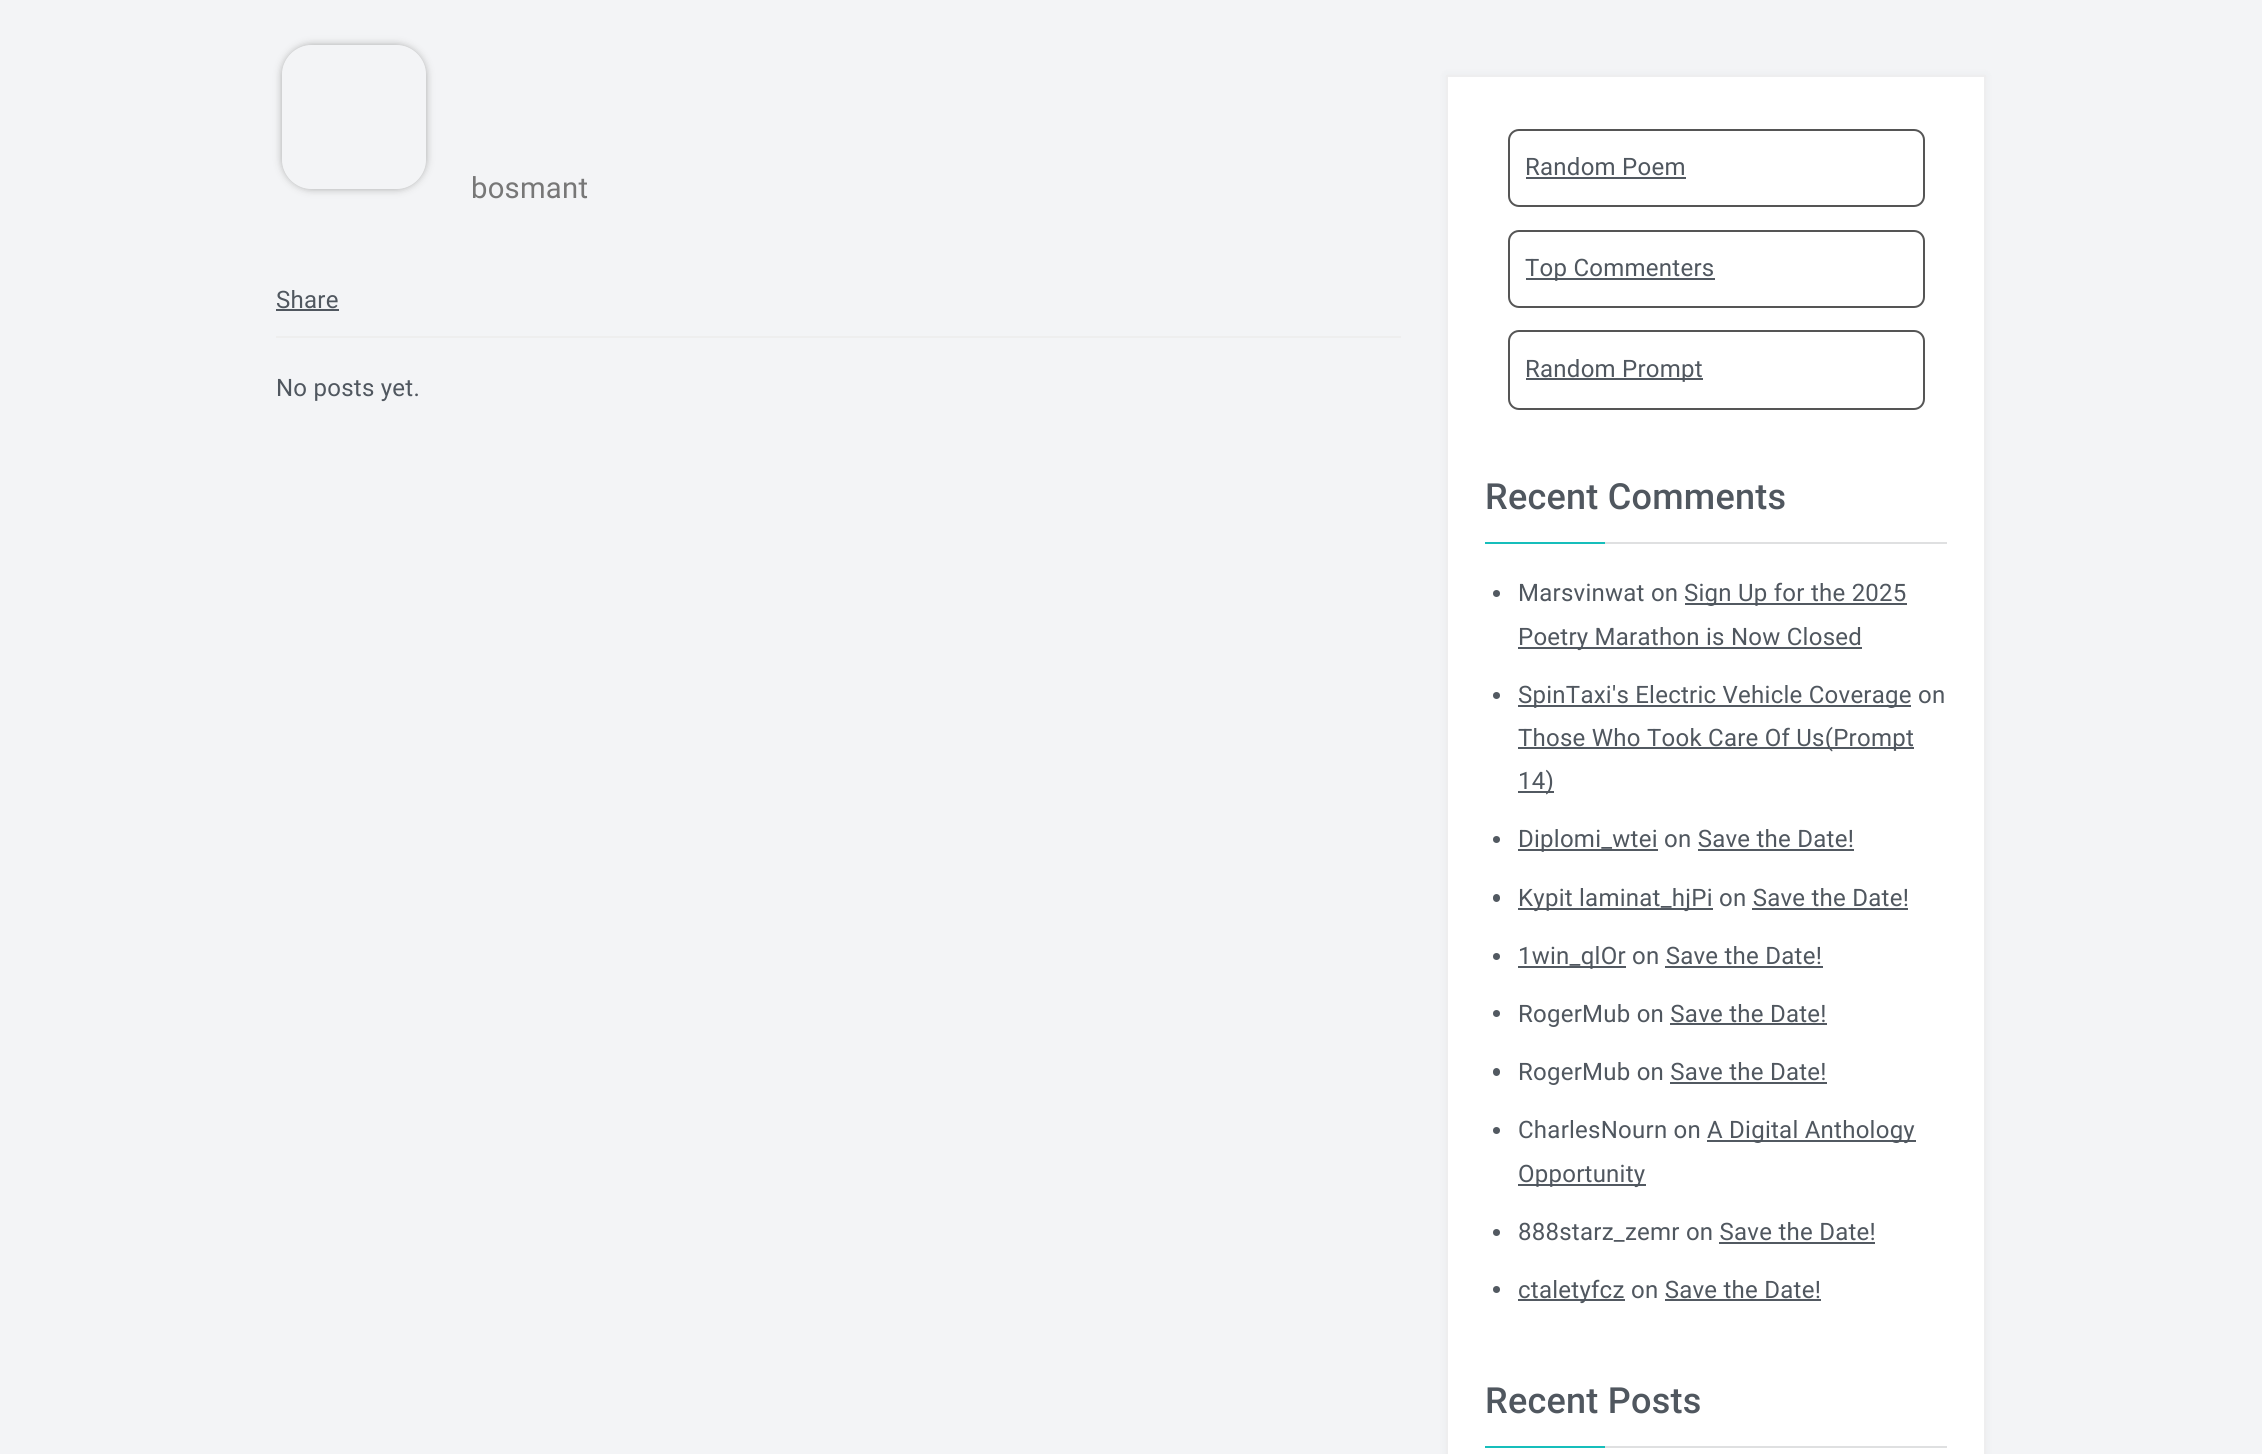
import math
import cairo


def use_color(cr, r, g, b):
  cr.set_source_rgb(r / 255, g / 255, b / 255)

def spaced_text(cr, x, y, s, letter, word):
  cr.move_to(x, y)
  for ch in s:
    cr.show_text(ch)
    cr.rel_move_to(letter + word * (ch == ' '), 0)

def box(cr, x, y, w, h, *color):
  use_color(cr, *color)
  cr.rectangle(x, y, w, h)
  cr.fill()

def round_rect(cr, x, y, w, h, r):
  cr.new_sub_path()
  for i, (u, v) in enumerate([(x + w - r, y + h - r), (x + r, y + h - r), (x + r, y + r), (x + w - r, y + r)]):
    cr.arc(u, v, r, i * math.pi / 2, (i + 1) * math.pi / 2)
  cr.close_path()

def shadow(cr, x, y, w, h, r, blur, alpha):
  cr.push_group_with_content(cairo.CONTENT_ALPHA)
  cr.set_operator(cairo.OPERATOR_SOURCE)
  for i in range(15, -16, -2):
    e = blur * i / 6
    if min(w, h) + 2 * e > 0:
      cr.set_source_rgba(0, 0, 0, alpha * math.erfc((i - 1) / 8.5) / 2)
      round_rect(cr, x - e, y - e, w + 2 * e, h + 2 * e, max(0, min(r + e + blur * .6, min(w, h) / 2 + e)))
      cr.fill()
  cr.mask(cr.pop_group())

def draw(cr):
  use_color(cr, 243, 244, 246)
  cr.paint()
  box(cr, 276, 336, 1125, 2, 238, 238, 238)
  cr.save()
  cr.set_fill_rule(cairo.FILL_RULE_EVEN_ODD)
  cr.new_path()
  cr.move_to(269, 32)
  cr.line_to(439, 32)
  cr.line_to(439, 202)
  cr.line_to(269, 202)
  cr.close_path()
  cr.move_to(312, 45)
  cr.line_to(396, 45)
  cr.curve_to(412.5, 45, 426, 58.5, 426, 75)
  cr.line_to(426, 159)
  cr.curve_to(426, 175.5, 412.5, 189, 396, 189)
  cr.line_to(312, 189)
  cr.curve_to(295.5, 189, 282, 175.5, 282, 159)
  cr.line_to(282, 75)
  cr.curve_to(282, 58.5, 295.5, 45, 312, 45)
  cr.close_path()
  cr.clip()
  use_color(cr, 170, 170, 170)
  shadow(cr, 282, 45, 144, 144, 30, 4, 1)
  cr.restore()
  box(cr, 276, 309, 63, 2, 80, 87, 95)
  use_color(cr, 39, 48, 57)
  shadow(cr, 1446, 75, 540, 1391, 0, 4, 0.05)
  use_color(cr, 255, 255, 255)
  cr.rectangle(1447, 76, 538, 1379)
  cr.fill_preserve()
  use_color(cr, 238, 238, 239)
  cr.stroke()
  round_rect(cr, 1509, 130, 415, 76, 10)
  use_color(cr, 85, 85, 85)
  cr.stroke()
  box(cr, 1526, 177, 160, 2, 82, 89, 97)
  round_rect(cr, 1509, 231, 415, 76, 10)
  use_color(cr, 85, 85, 85)
  cr.stroke()
  box(cr, 1526, 278, 189, 2, 82, 89, 97)
  round_rect(cr, 1509, 331, 415, 78, 10)
  use_color(cr, 85, 85, 85)
  cr.stroke()
  box(cr, 1526, 378, 177, 2, 82, 89, 97)
  box(cr, 1605, 542, 342, 2, 223, 224, 225)
  box(cr, 1485, 542, 120, 2, 23, 190, 187)
  use_color(cr, 82, 89, 97)
  cr.arc(1496.5, 593.5, 3.5, 0, 2 * math.pi)
  cr.fill()
  box(cr, 1685, 603, 222, 2, 82, 89, 97)
  box(cr, 1518, 647, 344, 2, 82, 89, 97)
  cr.arc(1496.5, 695.5, 3.5, 0, 2 * math.pi)
  cr.fill()
  box(cr, 1518, 705, 393, 2, 82, 89, 97)
  box(cr, 1518, 747, 396, 2, 82, 89, 97)
  box(cr, 1518, 791, 36, 2, 82, 89, 97)
  cr.arc(1496.5, 839.5, 3.5, 0, 2 * math.pi)
  cr.fill()
  box(cr, 1518, 849, 140, 2, 82, 89, 97)
  box(cr, 1698, 849, 156, 2, 82, 89, 97)
  round_rect(cr, 1493, 894, 7, 8, 3.5)
  cr.fill()
  box(cr, 1518, 908, 195, 2, 82, 89, 97)
  box(cr, 1752, 908, 156, 2, 82, 89, 97)
  cr.arc(1496.5, 956.5, 3.5, 0, 2 * math.pi)
  cr.fill()
  box(cr, 1518, 966, 108, 2, 82, 89, 97)
  box(cr, 1665, 966, 158, 2, 82, 89, 97)
  cr.arc(1496.5, 1013.5, 3.5, 0, 2 * math.pi)
  cr.fill()
  round_rect(cr, 1493, 1068, 7, 8, 3.5)
  cr.fill()
  cr.arc(1496.5, 1130.5, 3.5, 0, 2 * math.pi)
  cr.fill()
  box(cr, 1707, 1140, 209, 2, 82, 89, 97)
  box(cr, 1518, 1184, 128, 2, 82, 89, 97)
  cr.arc(1496.5, 1232.5, 3.5, 0, 2 * math.pi)
  cr.fill()
  box(cr, 1719, 1242, 156, 2, 82, 89, 97)
  cr.arc(1496.5, 1289.5, 3.5, 0, 2 * math.pi)
  cr.fill()
  box(cr, 1518, 1299, 107, 2, 82, 89, 97)
  box(cr, 1665, 1299, 156, 2, 82, 89, 97)
  box(cr, 1605, 1446, 342, 2, 223, 224, 225)
  box(cr, 1485, 1446, 120, 2, 23, 190, 187)
  cr.select_font_face("Roboto")
  cr.set_font_size(29.25)
  use_color(cr, 119, 119, 119)
  spaced_text(cr, 471, 198, "bosmant", 0.25, 0)
  cr.set_font_size(24)
  use_color(cr, 80, 87, 95)
  spaced_text(cr, 276, 308, "Share", 0.25, 0)
  spaced_text(cr, 276, 396, "No posts yet.", 0.25, 0)
  spaced_text(cr, 1525, 175, "Random Poem", 0.25, 0)
  spaced_text(cr, 1525, 276, "Top Commenters", 0.25, 0)
  spaced_text(cr, 1525, 377, "Random Prompt", 0.25, 0)
  cr.select_font_face("Roboto Medium")
  cr.set_font_size(36)
  spaced_text(cr, 1485, 509, "Recent Comments", 0.25, 0)
  cr.select_font_face("Roboto")
  cr.set_font_size(24)
  spaced_text(cr, 1518, 601, "Marsvinwat on", 0.25, 0)
  spaced_text(cr, 1684, 601, "Sign Up for the 2025", 0.25, 0)
  spaced_text(cr, 1518, 645, "Poetry Marathon is Now Closed", 0.25, 0)
  spaced_text(cr, 1518, 703, "SpinTaxi's Electric Vehicle Coverage", 0.25, 0)
  spaced_text(cr, 1918, 703, "on", 0.25, 0)
  spaced_text(cr, 1518, 746, "Those Who Took Care Of Us(Prompt", 0.25, 0)
  spaced_text(cr, 1518, 789, "14)", 0.25, 0)
  spaced_text(cr, 1518, 847, "Diplomi_wtei", 0.25, 0)
  spaced_text(cr, 1664, 847, "on Save the Date!", 0.25, 0)
  spaced_text(cr, 1518, 906, "Kypit laminat_hjPi", 0.25, 0)
  spaced_text(cr, 1719, 906, "on Save the Date!", 0.25, 0)
  spaced_text(cr, 1518, 964, "1win_qlOr", 0.25, 0)
  spaced_text(cr, 1632, 964, "on Save the Date!", 0.25, 0)
  spaced_text(cr, 1518, 1022, "RogerMub on Save the Date!", 0.25, 0)
  box(cr, 1670, 1023, 157, 2, 82, 89, 97)
  use_color(cr, 80, 87, 95)
  spaced_text(cr, 1518, 1080, "RogerMub on Save the Date!", 0.25, 0)
  box(cr, 1670, 1082, 157, 2, 82, 89, 97)
  use_color(cr, 80, 87, 95)
  spaced_text(cr, 1518, 1138, "CharlesNourn on", 0.25, 0)
  spaced_text(cr, 1707, 1138, "A Digital Anthology", 0.25, 0)
  spaced_text(cr, 1518, 1182, "Opportunity", 0.25, 0)
  spaced_text(cr, 1518, 1240, "888starz_zemr on Save the Date!", 0.25, 0)
  spaced_text(cr, 1518, 1298, "ctaletyfcz", 0.25, 0)
  spaced_text(cr, 1631, 1298, "on Save the Date!", 0.25, 0)
  cr.select_font_face("Roboto Medium")
  cr.set_font_size(36)
  spaced_text(cr, 1485, 1413, "Recent Posts", 0.25, 0)


surface = cairo.ImageSurface(cairo.FORMAT_RGB24, 2262, 1454)
cr = cairo.Context(surface)
options = cairo.FontOptions()
options.set_hint_metrics(cairo.HINT_METRICS_OFF)
options.set_hint_style(cairo.HINT_STYLE_NONE)
cr.set_font_options(options)
cr.set_miter_limit(4)
draw(cr)
surface.write_to_png("out.png")
